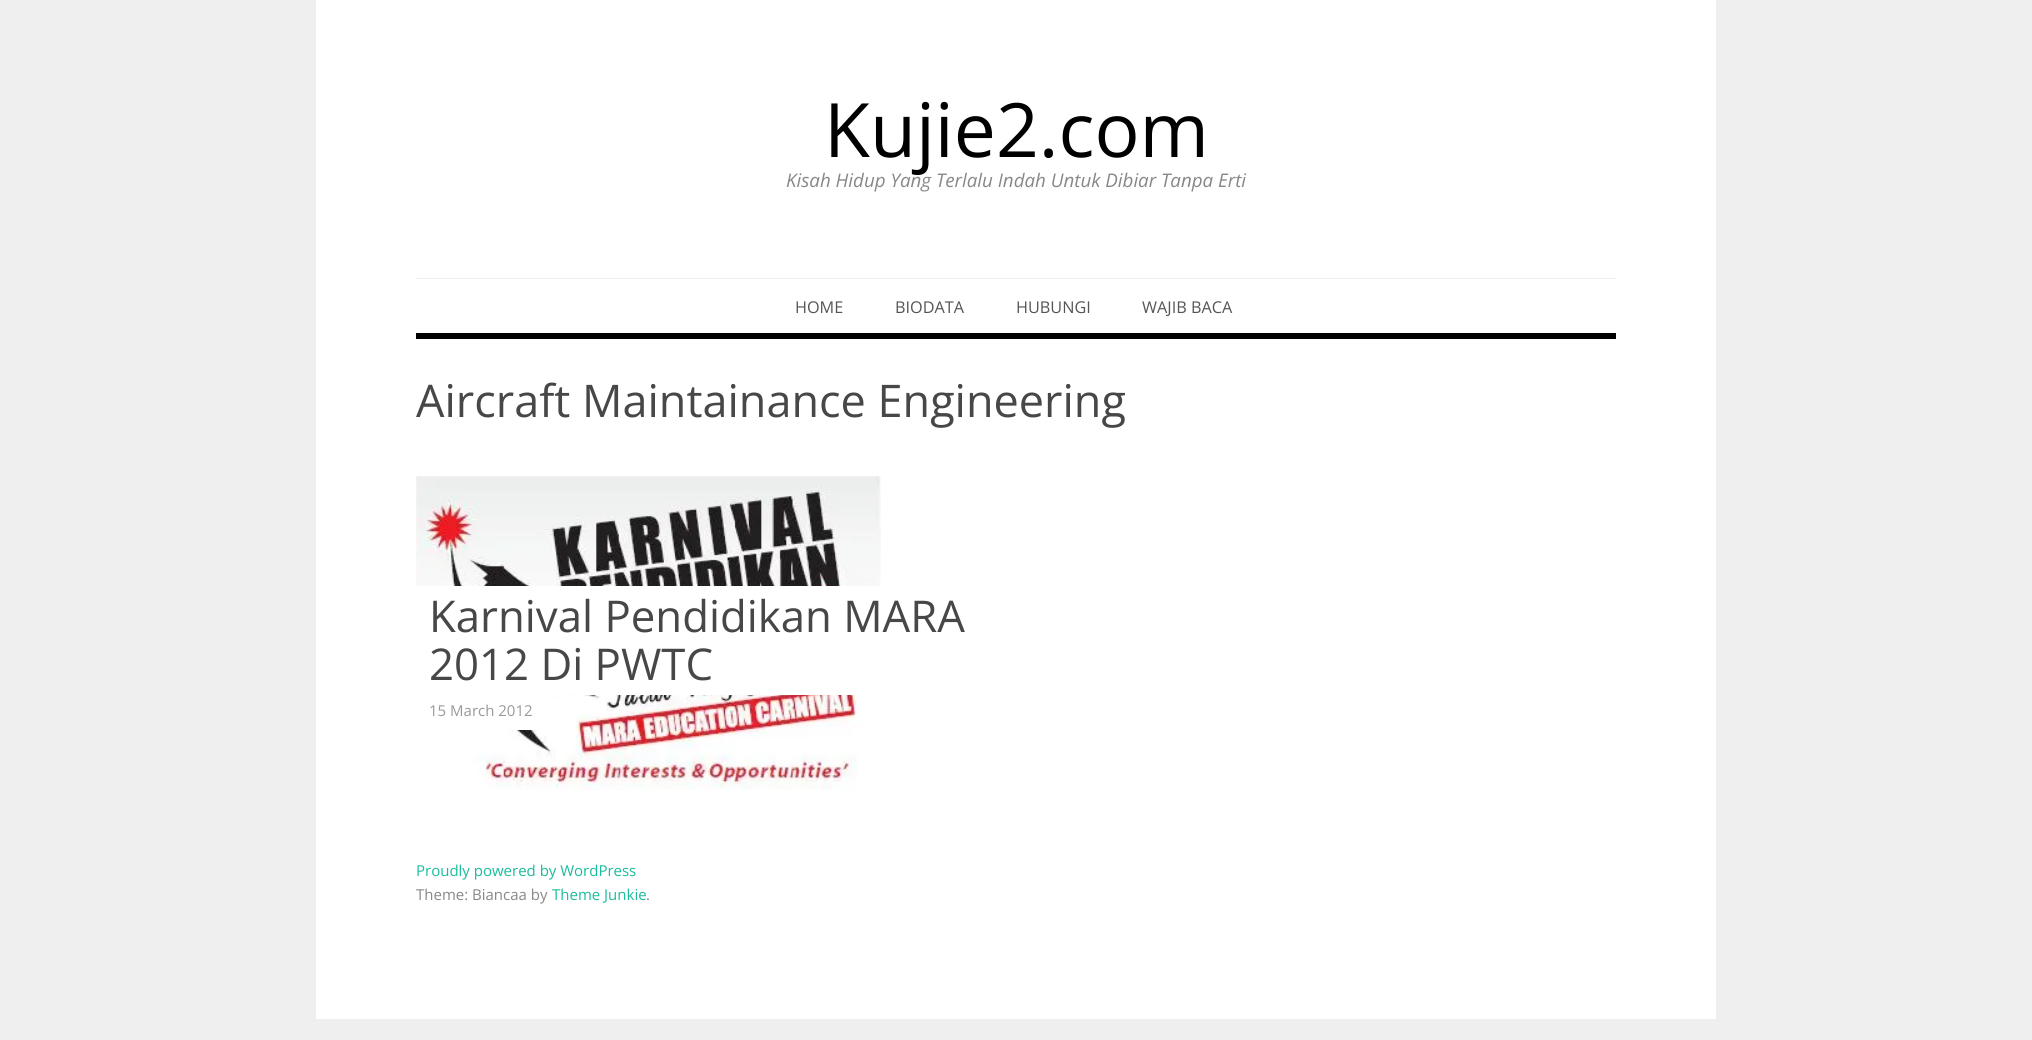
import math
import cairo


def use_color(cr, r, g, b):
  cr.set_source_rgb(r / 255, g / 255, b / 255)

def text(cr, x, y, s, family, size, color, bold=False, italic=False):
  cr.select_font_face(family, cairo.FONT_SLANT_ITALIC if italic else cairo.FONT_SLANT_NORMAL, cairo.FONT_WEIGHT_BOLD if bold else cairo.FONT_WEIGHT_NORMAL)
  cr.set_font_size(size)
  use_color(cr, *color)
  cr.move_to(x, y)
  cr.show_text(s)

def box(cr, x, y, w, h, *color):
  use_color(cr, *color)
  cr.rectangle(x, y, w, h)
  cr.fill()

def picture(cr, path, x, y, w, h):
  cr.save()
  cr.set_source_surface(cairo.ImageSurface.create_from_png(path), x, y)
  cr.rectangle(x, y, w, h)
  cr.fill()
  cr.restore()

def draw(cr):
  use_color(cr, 239, 239, 239)
  cr.paint()
  box(cr, 316, 0, 1400, 1019, 255, 255, 255)
  box(cr, 416, 278, 1200, 1, 239, 239, 239)
  box(cr, 416, 333, 1200, 6, 0, 0, 0)
  picture(cr, "img_01.png", 416, 476, 465, 314)
  box(cr, 416, 586, 465, 109, 255, 255, 255)
  box(cr, 476, 695, 73, 35, 255, 255, 255)
  text(cr, 824, 157, "Kujie2.com", "Open Sans", 75, (0, 0, 0))
  text(cr, 786, 187, "Kisah Hidup Yang Terlalu Indah Untuk Dibiar Tanpa Erti", "Open Sans", 18.75, (135, 135, 135), italic=True)
  text(cr, 795, 313, "HOME", "Open Sans", 16.25, (85, 85, 85))
  text(cr, 895, 313, "BIODATA", "Open Sans", 16.25, (85, 85, 85))
  text(cr, 1016, 313, "HUBUNGI", "Open Sans", 16.25, (85, 85, 85))
  text(cr, 1142, 313, "WAJIB BACA", "Open Sans", 16.25, (85, 85, 85))
  text(cr, 416, 417, "Aircraft Maintainance Engineering", "Open Sans", 45, (71, 71, 71))
  text(cr, 429, 632, "Karnival Pendidikan MARA", "Open Sans", 43.75, (71, 71, 71))
  text(cr, 429, 680, "2012 Di PWTC", "Open Sans", 43.75, (71, 71, 71))
  text(cr, 429, 716, "15 March 2012", "Open Sans", 15, (153, 153, 153))
  text(cr, 416, 876, "Proudly powered by WordPress", "Open Sans", 15, (26, 188, 156))
  text(cr, 416, 900, "Theme: Biancaa by", "Open Sans", 15, (135, 135, 135))
  text(cr, 552, 900, "Theme Junkie", "Open Sans", 15, (26, 188, 156))
  text(cr, 646, 900, ".", "Open Sans", 15, (135, 135, 135))


surface = cairo.ImageSurface(cairo.FORMAT_RGB24, 2032, 1040)
cr = cairo.Context(surface)
options = cairo.FontOptions()
options.set_hint_metrics(cairo.HINT_METRICS_OFF)
options.set_hint_style(cairo.HINT_STYLE_NONE)
cr.set_font_options(options)
cr.set_miter_limit(4)
draw(cr)
surface.write_to_png("out.png")
